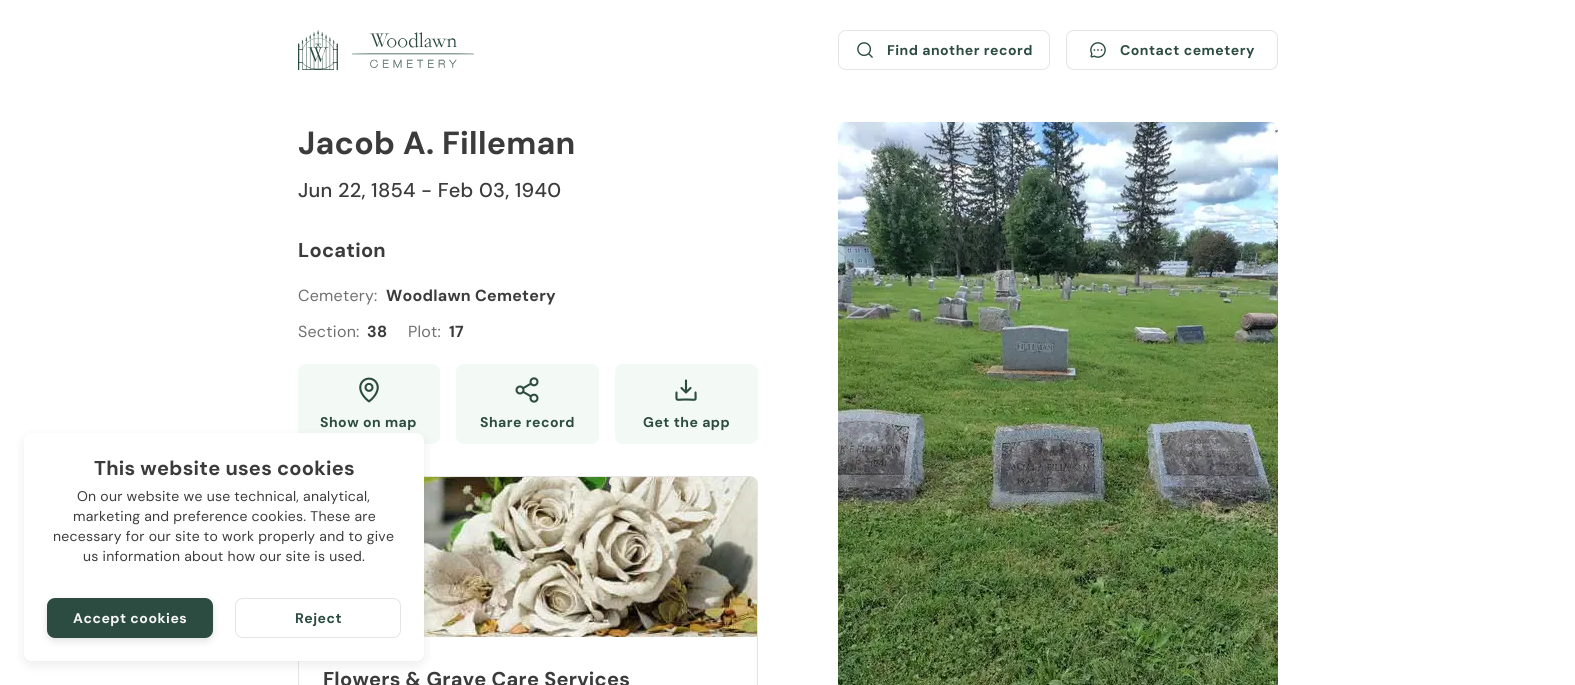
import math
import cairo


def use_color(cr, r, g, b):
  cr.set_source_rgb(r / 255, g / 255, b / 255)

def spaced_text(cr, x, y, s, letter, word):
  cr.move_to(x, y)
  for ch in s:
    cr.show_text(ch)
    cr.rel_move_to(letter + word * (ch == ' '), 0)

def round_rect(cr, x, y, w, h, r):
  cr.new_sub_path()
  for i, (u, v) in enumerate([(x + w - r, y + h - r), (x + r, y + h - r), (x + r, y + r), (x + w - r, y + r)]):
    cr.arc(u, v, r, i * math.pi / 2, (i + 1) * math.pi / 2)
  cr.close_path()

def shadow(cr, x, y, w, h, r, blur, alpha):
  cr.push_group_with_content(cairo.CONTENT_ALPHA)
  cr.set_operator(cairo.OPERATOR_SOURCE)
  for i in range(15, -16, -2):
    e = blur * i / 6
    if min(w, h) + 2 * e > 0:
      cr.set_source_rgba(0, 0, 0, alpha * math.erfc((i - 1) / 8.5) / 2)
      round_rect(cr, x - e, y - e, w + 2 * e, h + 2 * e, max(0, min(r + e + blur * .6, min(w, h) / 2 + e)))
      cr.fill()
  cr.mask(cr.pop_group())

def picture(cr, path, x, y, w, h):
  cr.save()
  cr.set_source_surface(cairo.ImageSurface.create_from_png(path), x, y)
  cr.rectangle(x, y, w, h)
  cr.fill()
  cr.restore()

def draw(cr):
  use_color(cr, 255, 255, 255)
  cr.paint()
  use_color(cr, 243, 249, 245)
  round_rect(cr, 298, 364, 142, 80, 8)
  cr.fill()
  round_rect(cr, 298.5, 476.5, 459, 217, 7.5)
  use_color(cr, 229, 229, 229)
  cr.set_line_width(1)
  cr.stroke()
  picture(cr, "img_06.png", 424, 477, 333, 160)
  use_color(cr, 0, 0, 0)
  shadow(cr, 24, 437, 400, 228, 8, 6, 0.08)
  use_color(cr, 255, 255, 255)
  round_rect(cr, 24, 433, 400, 228, 8)
  cr.fill()
  use_color(cr, 0, 0, 0)
  shadow(cr, 47, 601, 166, 40, 8, 4, 0.12)
  use_color(cr, 44, 76, 65)
  round_rect(cr, 47, 598, 166, 40, 8)
  cr.fill()
  round_rect(cr, 235.5, 598.5, 165, 39, 7.5)
  use_color(cr, 229, 229, 229)
  cr.stroke()
  picture(cr, "img_01.png", 298, 30, 176, 40)
  round_rect(cr, 838.5, 30.5, 211, 39, 7.5)
  cr.stroke()
  picture(cr, "img_02.png", 857, 42, 16, 16)
  round_rect(cr, 1066.5, 30.5, 211, 39, 7.5)
  cr.stroke()
  picture(cr, "img_03.png", 1090, 42, 16, 16)
  picture(cr, "img_04.png", 359, 377, 20, 26)
  use_color(cr, 243, 249, 245)
  round_rect(cr, 456, 364, 143, 80, 8)
  cr.fill()
  picture(cr, "img_05.png", 515, 377, 24, 26)
  round_rect(cr, 615, 364, 143, 80, 8)
  cr.fill()
  cr.new_path()
  cr.move_to(681.5, 388)
  cr.line_to(686, 392.5)
  cr.line_to(690.5, 388)
  cr.move_to(686, 380.5)
  cr.line_to(686, 392.5)
  cr.move_to(695.5, 392.5)
  cr.curve_to(695.5, 402, 697.5, 399.5, 686, 399.5)
  cr.curve_to(675, 399.5, 676.5, 402, 676.5, 392.5)
  use_color(cr, 44, 76, 65)
  cr.set_line_width(2.1)
  cr.set_line_cap(cairo.LINE_CAP_ROUND)
  cr.set_line_join(cairo.LINE_JOIN_ROUND)
  cr.stroke()
  picture(cr, "img_07.png", 838, 122, 440, 563)
  cr.select_font_face("DM Sans", cairo.FONT_SLANT_NORMAL, cairo.FONT_WEIGHT_BOLD)
  cr.set_font_size(20)
  use_color(cr, 59, 59, 59)
  spaced_text(cr, 94, 475, "This website uses cookies", 0.25, 0)
  cr.select_font_face("DM Sans")
  cr.set_font_size(14)
  spaced_text(cr, 77, 501, "On our website we use technical, analytical,", 0.25, 0)
  spaced_text(cr, 73, 521, "marketing and preference cookies. These are", 0.25, 0)
  spaced_text(cr, 53, 541, "necessary for our site to work properly and to give", 0.25, 0)
  spaced_text(cr, 83, 561, "us information about how our site is used.", 0.25, 0)
  cr.select_font_face("DM Sans", cairo.FONT_SLANT_NORMAL, cairo.FONT_WEIGHT_BOLD)
  use_color(cr, 247, 247, 247)
  spaced_text(cr, 73, 623, "Accept cookies", 0.5, 0)
  use_color(cr, 44, 76, 65)
  spaced_text(cr, 295, 623, "Reject", 0.5, 0)
  spaced_text(cr, 887, 55, "Find another record", 0.5, 0)
  spaced_text(cr, 1120, 55, "Contact cemetery", 0.5, 0)
  cr.set_font_size(32)
  use_color(cr, 59, 59, 59)
  spaced_text(cr, 298, 154, "Jacob A. Filleman", 0.25, 0)
  cr.select_font_face("DM Sans Medium")
  cr.set_font_size(20)
  spaced_text(cr, 298, 197, "Jun 22, 1854 - Feb 03, 1940", 0.25, 0)
  cr.select_font_face("DM Sans", cairo.FONT_SLANT_NORMAL, cairo.FONT_WEIGHT_BOLD)
  spaced_text(cr, 298, 257, "Location", 0.25, 0)
  cr.select_font_face("DM Sans")
  cr.set_font_size(16)
  use_color(cr, 112, 112, 112)
  spaced_text(cr, 298, 301, "Cemetery:", 0.25, 0)
  cr.select_font_face("DM Sans", cairo.FONT_SLANT_NORMAL, cairo.FONT_WEIGHT_BOLD)
  use_color(cr, 59, 59, 59)
  spaced_text(cr, 386, 301, "Woodlawn Cemetery", 0.25, 0)
  cr.select_font_face("DM Sans")
  use_color(cr, 112, 112, 112)
  spaced_text(cr, 298, 337, "Section:", 0.25, 0)
  cr.select_font_face("DM Sans", cairo.FONT_SLANT_NORMAL, cairo.FONT_WEIGHT_BOLD)
  use_color(cr, 59, 59, 59)
  spaced_text(cr, 367, 337, "38", 0.25, 0)
  cr.select_font_face("DM Sans")
  use_color(cr, 112, 112, 112)
  spaced_text(cr, 408, 337, "Plot:", 0.25, 0)
  cr.select_font_face("DM Sans", cairo.FONT_SLANT_NORMAL, cairo.FONT_WEIGHT_BOLD)
  use_color(cr, 59, 59, 59)
  spaced_text(cr, 449, 337, "17", 0.25, 0)
  cr.set_font_size(14)
  use_color(cr, 44, 76, 65)
  spaced_text(cr, 320, 427, "Show on map", 0.5, 0)
  spaced_text(cr, 480, 427, "Share record", 0.5, 0)
  spaced_text(cr, 643, 427, "Get the app", 0.5, 0)
  cr.set_font_size(20)
  use_color(cr, 59, 59, 59)
  spaced_text(cr, 323, 686, "Flowers & Grave Care Services", 0.25, 0)


surface = cairo.ImageSurface(cairo.FORMAT_RGB24, 1575, 685)
cr = cairo.Context(surface)
options = cairo.FontOptions()
options.set_hint_metrics(cairo.HINT_METRICS_OFF)
options.set_hint_style(cairo.HINT_STYLE_NONE)
cr.set_font_options(options)
cr.set_miter_limit(4)
draw(cr)
surface.write_to_png("out.png")
